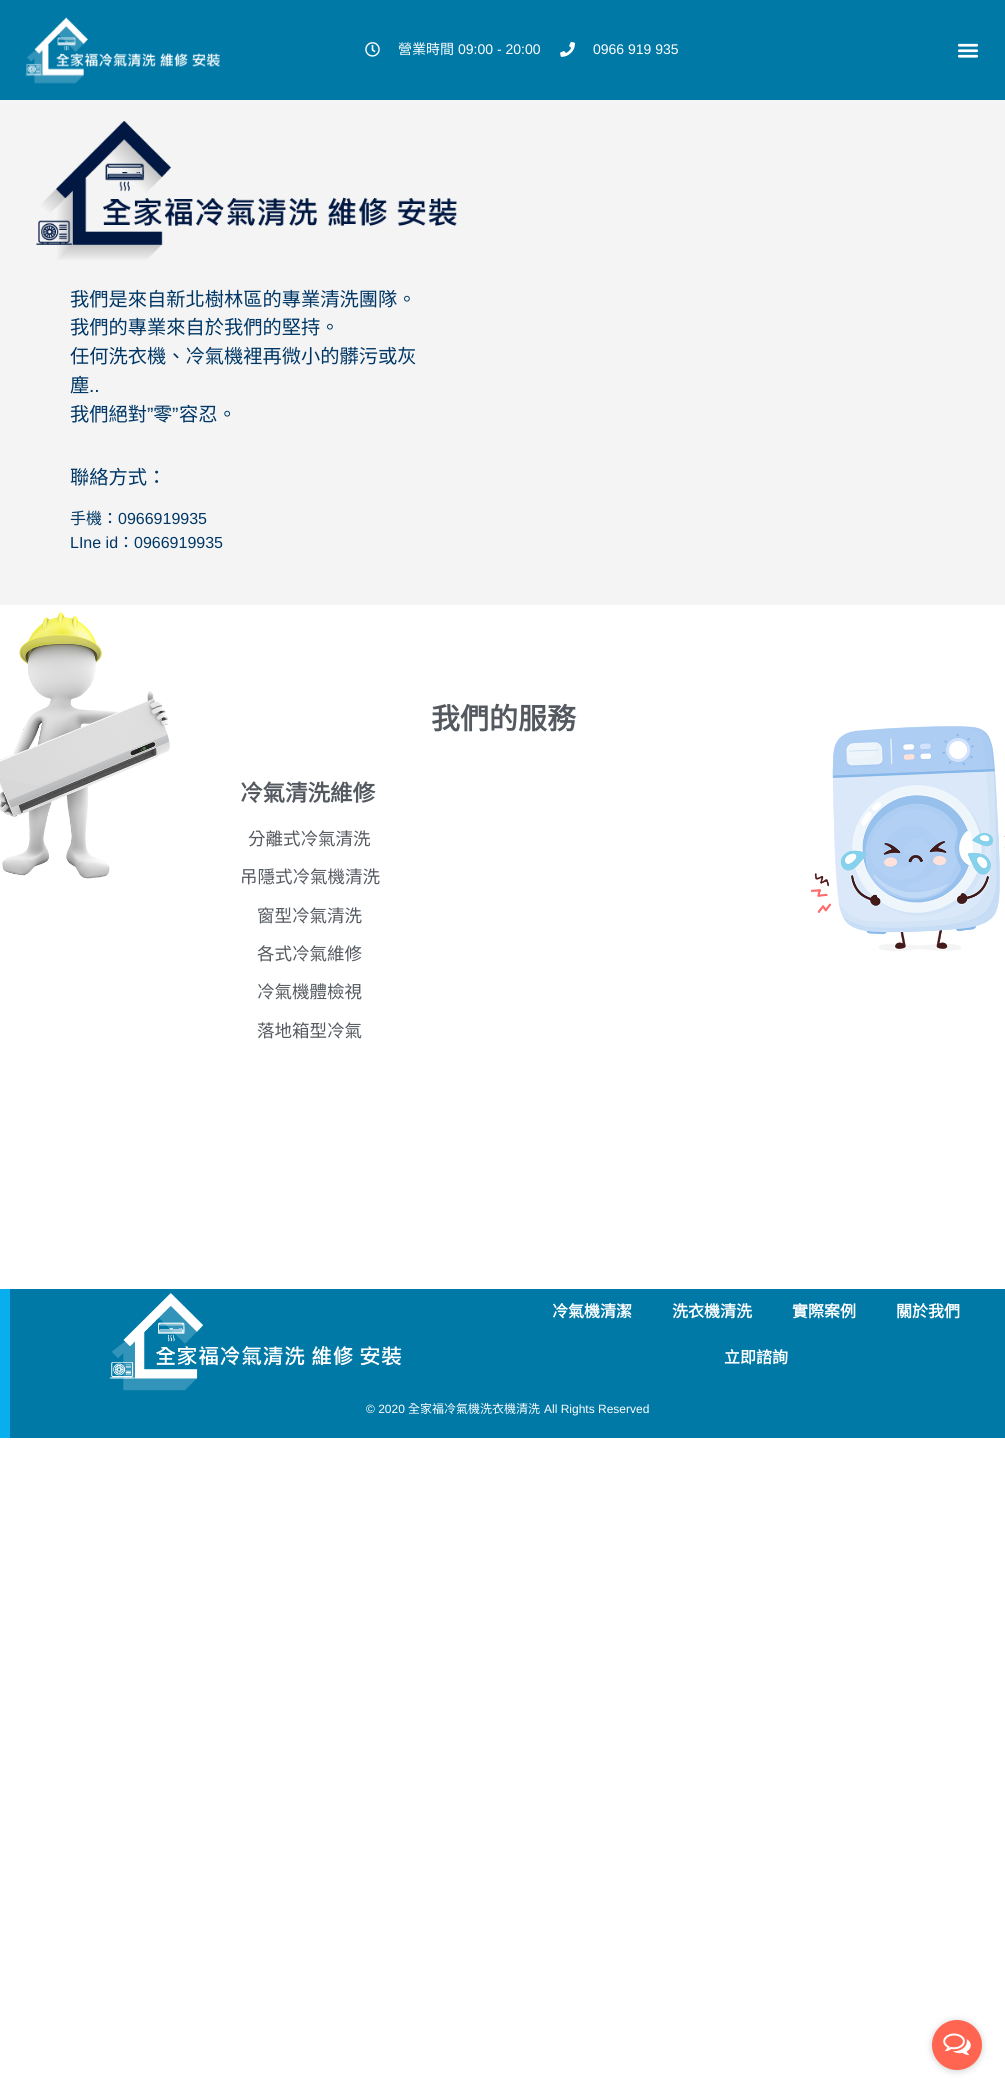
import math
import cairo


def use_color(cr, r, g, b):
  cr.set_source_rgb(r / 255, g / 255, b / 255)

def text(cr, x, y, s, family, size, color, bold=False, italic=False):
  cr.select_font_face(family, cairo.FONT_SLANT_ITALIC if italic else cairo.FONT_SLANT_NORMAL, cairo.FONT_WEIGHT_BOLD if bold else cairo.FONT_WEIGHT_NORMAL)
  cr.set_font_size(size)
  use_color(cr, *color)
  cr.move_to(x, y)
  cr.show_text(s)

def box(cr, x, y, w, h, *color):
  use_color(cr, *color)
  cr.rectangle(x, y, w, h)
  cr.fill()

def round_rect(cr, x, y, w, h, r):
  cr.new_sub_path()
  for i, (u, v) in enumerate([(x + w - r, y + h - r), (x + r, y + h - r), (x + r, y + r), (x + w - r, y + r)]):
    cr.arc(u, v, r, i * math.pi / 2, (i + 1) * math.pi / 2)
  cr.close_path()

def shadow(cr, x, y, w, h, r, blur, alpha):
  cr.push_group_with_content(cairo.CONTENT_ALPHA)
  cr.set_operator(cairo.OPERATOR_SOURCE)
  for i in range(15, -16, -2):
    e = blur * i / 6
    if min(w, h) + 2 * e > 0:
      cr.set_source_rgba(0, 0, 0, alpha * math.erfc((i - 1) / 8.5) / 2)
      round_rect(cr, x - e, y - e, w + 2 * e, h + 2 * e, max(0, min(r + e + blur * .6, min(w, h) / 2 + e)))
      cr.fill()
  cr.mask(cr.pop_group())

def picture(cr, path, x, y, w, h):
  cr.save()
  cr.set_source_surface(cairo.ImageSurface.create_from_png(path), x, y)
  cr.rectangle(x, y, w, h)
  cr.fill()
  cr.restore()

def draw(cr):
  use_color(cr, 255, 255, 255)
  cr.paint()
  box(cr, 0, 0, 1005, 100, 0, 121, 167)
  picture(cr, "img_01.png", 25, 17, 196, 67)
  picture(cr, "img_02.png", 365, 42, 15, 15)
  picture(cr, "img_03.png", 560, 41, 15, 16)
  picture(cr, "img_04.png", 957, 43, 22, 15)
  box(cr, 0, 100, 1005, 505, 244, 244, 244)
  picture(cr, "img_05.png", 36, 121, 421, 139)
  picture(cr, "img_06.png", 0, 612, 1005, 339)
  box(cr, 10, 1289, 995, 149, 0, 121, 167)
  box(cr, 0, 1289, 10, 149, 8, 174, 237)
  picture(cr, "img_07.png", 109, 1293, 293, 98)
  use_color(cr, 136, 136, 136)
  shadow(cr, 932, 2021, 50, 50, 25, 3.5, 0.4)
  use_color(cr, 255, 101, 80)
  cr.arc(957, 2045, 25, 0, 2 * math.pi)
  cr.fill()
  picture(cr, "img_08.png", 943, 2033, 28, 23)
  text(cr, 398, 54, "營業時間", "Noto Sans CJK TC", 14, (255, 255, 255))
  text(cr, 458, 54, "09:00 - 20:00", "Liberation Sans", 14, (255, 255, 255))
  text(cr, 593, 54, "0966 919 935", "Liberation Sans", 14, (255, 255, 255))
  text(cr, 70, 306, "我們是來自新北樹林區的專業清洗團隊。", "Noto Sans CJK TC", 19.25, (0, 55, 102))
  text(cr, 70, 334, "我們的專業來自於我們的堅持。", "Noto Sans CJK TC", 19.25, (0, 55, 102))
  text(cr, 70, 363, "任何洗衣機、冷氣機裡再微小的髒污或灰", "Noto Sans CJK TC", 19.25, (0, 55, 102))
  text(cr, 70, 392, "塵", "Noto Sans CJK TC", 19.25, (0, 55, 102))
  text(cr, 89, 392, "..", "Liberation Sans", 19.25, (0, 55, 102))
  text(cr, 70, 421, "我們絕對", "Noto Sans CJK TC", 19.25, (0, 55, 102))
  text(cr, 147, 421, "”", "Liberation Sans", 19.25, (0, 55, 102))
  text(cr, 153, 421, "零", "Noto Sans CJK TC", 19.25, (0, 55, 102))
  text(cr, 172, 421, "”", "Liberation Sans", 19.25, (0, 55, 102))
  text(cr, 179, 421, "容忍。", "Noto Sans CJK TC", 19.25, (0, 55, 102))
  text(cr, 70, 484, "聯絡方式：", "Noto Sans CJK TC", 19.25, (0, 55, 102))
  text(cr, 70, 524, "手機：", "Noto Sans CJK TC", 16, (0, 55, 102))
  text(cr, 118, 524, "0966919935", "Liberation Sans", 16, (0, 55, 102))
  text(cr, 70, 548, "LIne id", "Liberation Sans", 16, (0, 55, 102))
  text(cr, 118, 548, "：", "Noto Sans CJK TC", 16, (0, 55, 102))
  text(cr, 134, 548, "0966919935", "Liberation Sans", 16, (0, 55, 102))
  text(cr, 431, 729, "我們的服務", "Noto Sans CJK TC", 29, (84, 89, 95), bold=True)
  text(cr, 240, 801, "冷氣清洗維修", "Noto Sans CJK TC", 22.5, (84, 89, 95), bold=True)
  text(cr, 248, 845, "分離式冷氣清洗", "Noto Sans CJK TC", 17.5, (84, 89, 95))
  text(cr, 240, 883, "吊隱式冷氣機清洗", "Noto Sans CJK TC", 17.5, (84, 89, 95))
  text(cr, 257, 922, "窗型冷氣清洗", "Noto Sans CJK TC", 17.5, (84, 89, 95))
  text(cr, 257, 960, "各式冷氣維修", "Noto Sans CJK TC", 17.5, (84, 89, 95))
  text(cr, 257, 998, "冷氣機體檢視", "Noto Sans CJK TC", 17.5, (84, 89, 95))
  text(cr, 257, 1037, "落地箱型冷氣", "Noto Sans CJK TC", 17.5, (84, 89, 95))
  text(cr, 552, 1317, "冷氣機清潔", "Noto Sans CJK TC", 16, (255, 255, 255), bold=True)
  text(cr, 672, 1317, "洗衣機清洗", "Noto Sans CJK TC", 16, (255, 255, 255), bold=True)
  text(cr, 792, 1317, "實際案例", "Noto Sans CJK TC", 16, (255, 255, 255), bold=True)
  text(cr, 896, 1317, "關於我們", "Noto Sans CJK TC", 16, (255, 255, 255), bold=True)
  text(cr, 724, 1363, "立即諮詢", "Noto Sans CJK TC", 16, (255, 255, 255), bold=True)
  text(cr, 366, 1413, "© 2020", "Liberation Sans", 12, (255, 255, 255))
  text(cr, 408, 1413, "全家福冷氣機洗衣機清洗", "Noto Sans CJK TC", 12, (255, 255, 255))
  text(cr, 544, 1413, "All Rights Reserved", "Liberation Sans", 12, (255, 255, 255))


surface = cairo.ImageSurface(cairo.FORMAT_RGB24, 1005, 2091)
cr = cairo.Context(surface)
options = cairo.FontOptions()
options.set_hint_metrics(cairo.HINT_METRICS_OFF)
options.set_hint_style(cairo.HINT_STYLE_NONE)
cr.set_font_options(options)
cr.set_miter_limit(4)
draw(cr)
surface.write_to_png("out.png")
